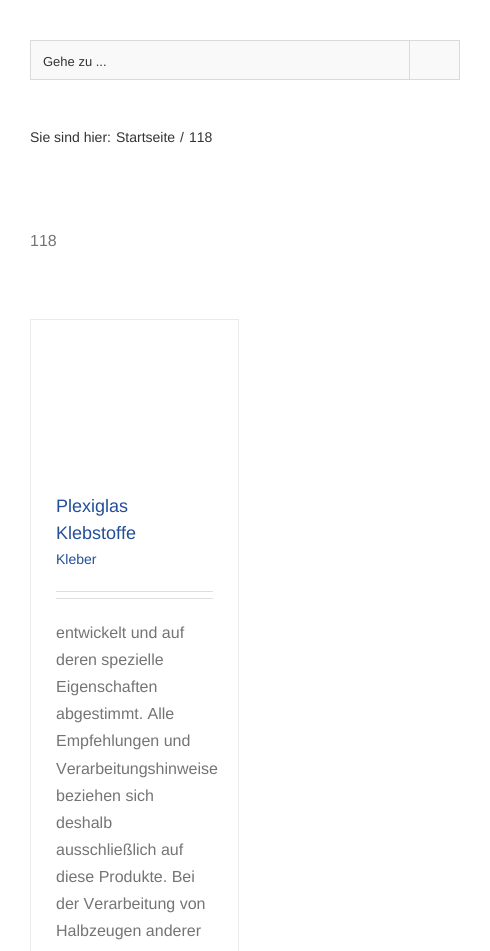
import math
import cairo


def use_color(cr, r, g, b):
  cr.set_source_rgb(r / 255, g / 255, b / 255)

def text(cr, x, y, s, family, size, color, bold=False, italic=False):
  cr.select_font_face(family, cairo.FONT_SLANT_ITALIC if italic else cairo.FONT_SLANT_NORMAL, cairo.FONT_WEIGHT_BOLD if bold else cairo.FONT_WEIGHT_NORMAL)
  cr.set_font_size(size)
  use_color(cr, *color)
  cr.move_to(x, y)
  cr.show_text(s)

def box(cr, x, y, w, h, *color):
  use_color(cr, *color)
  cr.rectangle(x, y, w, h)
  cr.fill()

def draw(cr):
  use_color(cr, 255, 255, 255)
  cr.paint()
  use_color(cr, 249, 249, 249)
  cr.rectangle(30.5, 40.5, 429, 39)
  cr.fill_preserve()
  use_color(cr, 218, 218, 218)
  cr.set_line_width(1)
  cr.stroke()
  box(cr, 409, 41, 1, 38, 218, 218, 218)
  box(cr, 30, 319, 209, 1, 235, 234, 234)
  box(cr, 238, 319, 1, 632, 235, 234, 234)
  box(cr, 30, 319, 1, 632, 235, 234, 234)
  box(cr, 56, 591, 157, 1, 224, 222, 222)
  box(cr, 56, 598, 157, 1, 224, 222, 222)
  text(cr, 43, 66, "Gehe zu ...", "Liberation Sans", 13, (51, 51, 51))
  text(cr, 30, 142, "Sie sind hier:", "Liberation Sans", 14, (51, 51, 51))
  text(cr, 116, 142, "Startseite", "Liberation Sans", 14, (51, 51, 51))
  text(cr, 180, 142, "/", "Liberation Sans", 14, (51, 51, 51))
  text(cr, 189, 142, "118", "Liberation Sans", 14, (51, 51, 51))
  text(cr, 30, 246, "118", "Liberation Sans", 16, (116, 116, 116))
  text(cr, 56, 512, "Plexiglas", "Liberation Sans", 18, (35, 78, 152))
  text(cr, 56, 539, "Klebstoffe", "Liberation Sans", 18, (35, 78, 152))
  text(cr, 56, 564, "Kleber", "Liberation Sans", 14, (35, 78, 152))
  text(cr, 56, 638, "entwickelt und auf", "Liberation Sans", 16, (116, 116, 116))
  text(cr, 56, 665, "deren spezielle", "Liberation Sans", 16, (116, 116, 116))
  text(cr, 56, 692, "Eigenschaften", "Liberation Sans", 16, (116, 116, 116))
  text(cr, 56, 719, "abgestimmt. Alle", "Liberation Sans", 16, (116, 116, 116))
  text(cr, 56, 746, "Empfehlungen und", "Liberation Sans", 16, (116, 116, 116))
  text(cr, 56, 774, "Verarbeitungshinweise", "Liberation Sans", 16, (116, 116, 116))
  text(cr, 56, 801, "beziehen sich", "Liberation Sans", 16, (116, 116, 116))
  text(cr, 56, 828, "deshalb", "Liberation Sans", 16, (116, 116, 116))
  text(cr, 56, 855, "ausschließlich auf", "Liberation Sans", 16, (116, 116, 116))
  text(cr, 56, 882, "diese Produkte. Bei", "Liberation Sans", 16, (116, 116, 116))
  text(cr, 56, 909, "der Verarbeitung von", "Liberation Sans", 16, (116, 116, 116))
  text(cr, 56, 936, "Halbzeugen anderer", "Liberation Sans", 16, (116, 116, 116))


surface = cairo.ImageSurface(cairo.FORMAT_RGB24, 490, 951)
cr = cairo.Context(surface)
options = cairo.FontOptions()
options.set_hint_metrics(cairo.HINT_METRICS_OFF)
options.set_hint_style(cairo.HINT_STYLE_NONE)
cr.set_font_options(options)
cr.set_miter_limit(4)
draw(cr)
surface.write_to_png("out.png")
